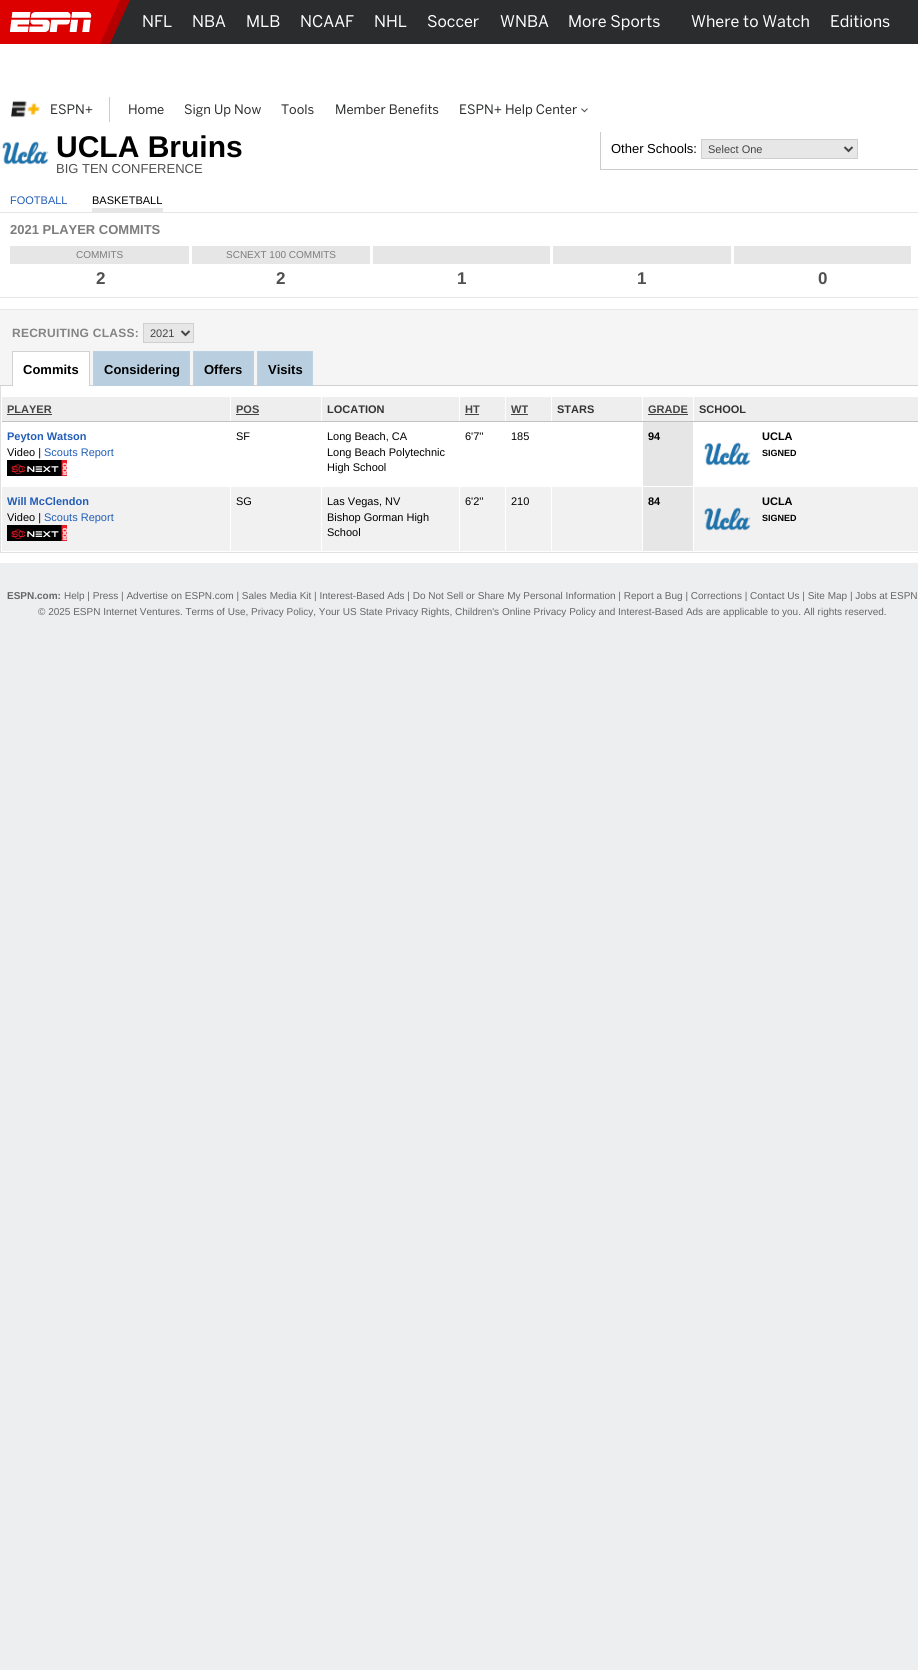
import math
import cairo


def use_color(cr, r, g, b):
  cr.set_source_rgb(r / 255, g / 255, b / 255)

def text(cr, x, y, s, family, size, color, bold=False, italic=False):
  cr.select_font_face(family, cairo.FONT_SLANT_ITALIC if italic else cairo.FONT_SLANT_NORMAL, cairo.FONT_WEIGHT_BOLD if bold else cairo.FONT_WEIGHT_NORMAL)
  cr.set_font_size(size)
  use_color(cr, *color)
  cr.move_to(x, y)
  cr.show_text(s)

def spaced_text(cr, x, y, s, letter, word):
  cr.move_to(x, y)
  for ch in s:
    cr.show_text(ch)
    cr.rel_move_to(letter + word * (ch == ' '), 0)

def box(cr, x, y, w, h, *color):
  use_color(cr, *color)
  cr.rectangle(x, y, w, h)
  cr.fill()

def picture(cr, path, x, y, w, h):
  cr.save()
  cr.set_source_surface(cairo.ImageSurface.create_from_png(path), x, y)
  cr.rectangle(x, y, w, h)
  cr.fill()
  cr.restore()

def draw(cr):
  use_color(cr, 237, 238, 240)
  cr.paint()
  box(cr, 0, 132, 918, 431, 255, 255, 255)
  cr.rectangle(600.5, 128.5, 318, 41)
  use_color(cr, 204, 204, 204)
  cr.set_line_width(1)
  cr.stroke()
  box(cr, 0, 44, 918, 88, 255, 255, 255)
  box(cr, 110, 0, 808, 44, 43, 44, 45)
  use_color(cr, 180, 0, 0)
  cr.new_path()
  cr.move_to(0, 0)
  cr.line_to(130, 0)
  cr.line_to(110, 44)
  cr.line_to(-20, 44)
  cr.close_path()
  cr.fill()
  use_color(cr, 221, 0, 0)
  cr.new_path()
  cr.move_to(-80, 0)
  cr.line_to(120, 0)
  cr.line_to(100, 44)
  cr.line_to(-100, 44)
  cr.close_path()
  cr.fill()
  picture(cr, "img_01.png", 10, 12, 82, 20)
  picture(cr, "img_02.png", 11, 100, 29, 18)
  box(cr, 109, 97, 1, 25, 203, 204, 206)
  picture(cr, "img_03.png", 581, 108, 7, 5)
  picture(cr, "img_04.png", 2, 141, 47, 24)
  use_color(cr, 231, 231, 231)
  cr.rectangle(701.5, 139.5, 156, 19)
  cr.fill_preserve()
  use_color(cr, 207, 207, 207)
  cr.stroke()
  cr.new_path()
  cr.move_to(844.5, 147)
  cr.line_to(848.5, 151)
  cr.line_to(852.5, 147)
  use_color(cr, 68, 68, 68)
  cr.set_line_width(2)
  cr.stroke()
  box(cr, 92, 208, 71, 4, 230, 230, 230)
  box(cr, 0, 212, 918, 1, 230, 230, 230)
  box(cr, 0, 297, 918, 1, 230, 230, 230)
  box(cr, 10, 246, 179, 18, 230, 230, 230)
  box(cr, 192, 246, 178, 18, 230, 230, 230)
  box(cr, 373, 246, 177, 18, 230, 230, 230)
  box(cr, 553, 246, 178, 18, 230, 230, 230)
  box(cr, 734, 246, 177, 18, 230, 230, 230)
  box(cr, 0, 310, 918, 75, 245, 245, 245)
  box(cr, 0, 309, 918, 1, 230, 230, 230)
  box(cr, 0, 385, 918, 1, 209, 209, 209)
  use_color(cr, 231, 231, 231)
  cr.rectangle(143.5, 323.5, 50, 19)
  cr.fill_preserve()
  use_color(cr, 207, 207, 207)
  cr.set_line_width(1)
  cr.stroke()
  cr.new_path()
  cr.move_to(181.5, 331)
  cr.line_to(185.5, 335)
  cr.line_to(189.5, 331)
  use_color(cr, 68, 68, 68)
  cr.set_line_width(2)
  cr.stroke()
  box(cr, 13, 352, 76, 34, 255, 255, 255)
  cr.save()
  cr.rectangle(0, 351, 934, 35)
  cr.clip()
  cr.rectangle(12.5, 351.5, 77, 35)
  use_color(cr, 209, 209, 209)
  cr.set_line_width(1)
  cr.stroke()
  cr.restore()
  box(cr, 94, 352, 95, 34, 185, 206, 223)
  box(cr, 93, 351, 97, 1, 188, 209, 226)
  box(cr, 189, 351, 1, 35, 188, 209, 226)
  box(cr, 93, 351, 1, 35, 188, 209, 226)
  box(cr, 194, 352, 59, 34, 185, 206, 223)
  box(cr, 193, 351, 61, 1, 188, 209, 226)
  box(cr, 253, 351, 1, 35, 188, 209, 226)
  box(cr, 193, 351, 1, 35, 188, 209, 226)
  box(cr, 258, 352, 54, 34, 185, 206, 223)
  box(cr, 257, 351, 56, 1, 188, 209, 226)
  box(cr, 312, 351, 1, 35, 188, 209, 226)
  box(cr, 257, 351, 1, 35, 188, 209, 226)
  box(cr, 0, 552, 918, 1, 224, 224, 224)
  box(cr, 0, 386, 1, 167, 224, 224, 224)
  box(cr, 2, 397, 228, 24, 238, 238, 238)
  box(cr, 693, 421, 225, 1, 194, 194, 194)
  box(cr, 693, 421, 1, 1, 255, 255, 255)
  box(cr, 642, 421, 52, 1, 194, 194, 194)
  box(cr, 642, 421, 1, 1, 255, 255, 255)
  box(cr, 551, 421, 92, 1, 194, 194, 194)
  box(cr, 551, 421, 1, 1, 255, 255, 255)
  box(cr, 505, 421, 47, 1, 194, 194, 194)
  box(cr, 505, 421, 1, 1, 255, 255, 255)
  box(cr, 459, 421, 47, 1, 194, 194, 194)
  box(cr, 459, 421, 1, 1, 255, 255, 255)
  box(cr, 321, 421, 139, 1, 194, 194, 194)
  box(cr, 321, 421, 1, 1, 255, 255, 255)
  box(cr, 230, 421, 92, 1, 194, 194, 194)
  box(cr, 230, 421, 1, 1, 255, 255, 255)
  box(cr, 1, 421, 230, 1, 194, 194, 194)
  box(cr, 1, 421, 1, 1, 255, 255, 255)
  box(cr, 7, 414, 45, 1, 68, 68, 68)
  box(cr, 231, 397, 90, 24, 238, 238, 238)
  box(cr, 236, 414, 23, 1, 68, 68, 68)
  box(cr, 322, 397, 137, 24, 238, 238, 238)
  box(cr, 460, 397, 45, 24, 238, 238, 238)
  box(cr, 465, 414, 14, 1, 68, 68, 68)
  box(cr, 506, 397, 45, 24, 238, 238, 238)
  box(cr, 511, 414, 17, 1, 68, 68, 68)
  box(cr, 552, 397, 90, 24, 238, 238, 238)
  box(cr, 643, 397, 50, 24, 238, 238, 238)
  box(cr, 648, 414, 40, 1, 68, 68, 68)
  box(cr, 694, 397, 224, 24, 238, 238, 238)
  picture(cr, "img_05.png", 7, 460, 60, 16)
  box(cr, 643, 422, 50, 64, 230, 230, 230)
  picture(cr, "img_04.png", 704, 442, 47, 24)
  box(cr, 2, 487, 228, 64, 241, 241, 241)
  picture(cr, "img_05.png", 7, 525, 60, 16)
  box(cr, 231, 487, 90, 64, 241, 241, 241)
  box(cr, 322, 487, 137, 64, 241, 241, 241)
  box(cr, 460, 487, 45, 64, 241, 241, 241)
  box(cr, 506, 487, 45, 64, 241, 241, 241)
  box(cr, 552, 487, 90, 64, 241, 241, 241)
  box(cr, 643, 487, 50, 64, 230, 230, 230)
  box(cr, 694, 487, 224, 64, 241, 241, 241)
  picture(cr, "img_06.png", 704, 507, 47, 24)
  text(cr, 142, 27, "NFL", "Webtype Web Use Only", 16, (255, 255, 255))
  text(cr, 192, 27, "NBA", "Webtype Web Use Only", 16, (255, 255, 255))
  text(cr, 246, 27, "MLB", "Webtype Web Use Only", 16, (255, 255, 255))
  text(cr, 300, 27, "NCAAF", "Webtype Web Use Only", 16, (255, 255, 255))
  text(cr, 374, 27, "NHL", "Webtype Web Use Only", 16, (255, 255, 255))
  text(cr, 427, 27, "Soccer", "Webtype Web Use Only", 16, (255, 255, 255))
  text(cr, 500, 27, "WNBA", "Webtype Web Use Only", 16, (255, 255, 255))
  text(cr, 568, 27, "More Sports", "Webtype Web Use Only", 16, (255, 255, 255))
  text(cr, 691, 27, "Where to Watch", "Webtype Web Use Only", 16, (255, 255, 255))
  text(cr, 830, 27, "Editions", "Webtype Web Use Only", 16, (255, 255, 255))
  text(cr, 50, 114, "ESPN+", "Webtype Web Use Only", 13, (43, 44, 45))
  text(cr, 128, 114, "Home", "Webtype Web Use Only", 13, (43, 44, 45))
  text(cr, 184, 114, "Sign Up Now", "Webtype Web Use Only", 13, (43, 44, 45))
  text(cr, 281, 114, "Tools", "Webtype Web Use Only", 13, (43, 44, 45))
  text(cr, 335, 114, "Member Benefits", "Webtype Web Use Only", 13, (43, 44, 45))
  text(cr, 459, 114, "ESPN+ Help Center", "Webtype Web Use Only", 13, (43, 44, 45))
  text(cr, 56, 157, "UCLA Bruins", "Liberation Sans", 30, (0, 0, 0), bold=True)
  text(cr, 56, 173, "BIG TEN CONFERENCE", "Liberation Sans", 13, (80, 80, 80))
  text(cr, 611, 153, "Other Schools:", "Liberation Sans", 13, (0, 0, 0))
  text(cr, 708, 153, "Select One", "Liberation Sans", 11, (68, 68, 68))
  text(cr, 10, 204, "FOOTBALL", "Liberation Sans", 11, (34, 93, 183))
  text(cr, 92, 204, "BASKETBALL", "Liberation Sans", 11, (0, 0, 0))
  text(cr, 10, 234, "2021 PLAYER COMMITS", "Liberation Sans", 13, (124, 124, 124), bold=True)
  text(cr, 76, 258, "COMMITS", "Liberation Sans", 10, (124, 124, 124))
  text(cr, 226, 258, "SCNEXT 100 COMMITS", "Liberation Sans", 10, (124, 124, 124))
  text(cr, 96, 284, "2", "Liberation Sans", 17, (80, 80, 80), bold=True)
  text(cr, 276, 284, "2", "Liberation Sans", 17, (80, 80, 80), bold=True)
  text(cr, 457, 284, "1", "Liberation Sans", 17, (80, 80, 80), bold=True)
  text(cr, 637, 284, "1", "Liberation Sans", 17, (80, 80, 80), bold=True)
  text(cr, 818, 284, "0", "Liberation Sans", 17, (80, 80, 80), bold=True)
  cr.set_font_size(12)
  use_color(cr, 132, 132, 132)
  spaced_text(cr, 12, 337, "RECRUITING CLASS:", 0.25, 0)
  text(cr, 150, 337, "2021", "Liberation Sans", 11, (68, 68, 68))
  text(cr, 23, 374, "Commits", "Liberation Sans", 13, (0, 0, 0), bold=True)
  text(cr, 104, 374, "Considering", "Liberation Sans", 13, (0, 0, 0), bold=True)
  text(cr, 204, 374, "Offers", "Liberation Sans", 13, (0, 0, 0), bold=True)
  text(cr, 268, 374, "Visits", "Liberation Sans", 13, (0, 0, 0), bold=True)
  text(cr, 7, 413, "PLAYER", "Liberation Sans", 11, (68, 68, 68), bold=True)
  text(cr, 236, 413, "POS", "Liberation Sans", 11, (68, 68, 68), bold=True)
  text(cr, 327, 413, "LOCATION", "Liberation Sans", 11, (51, 51, 51), bold=True)
  text(cr, 465, 413, "HT", "Liberation Sans", 11, (68, 68, 68), bold=True)
  text(cr, 511, 413, "WT", "Liberation Sans", 11, (68, 68, 68), bold=True)
  text(cr, 557, 413, "STARS", "Liberation Sans", 11, (51, 51, 51), bold=True)
  text(cr, 648, 413, "GRADE", "Liberation Sans", 11, (68, 68, 68), bold=True)
  text(cr, 699, 413, "SCHOOL", "Liberation Sans", 11, (51, 51, 51), bold=True)
  text(cr, 7, 440, "Peyton Watson", "Liberation Sans", 11, (34, 93, 183), bold=True)
  text(cr, 7, 456, "Video |", "Liberation Sans", 11, (0, 0, 0))
  text(cr, 44, 456, "Scouts Report", "Liberation Sans", 11, (34, 93, 183))
  text(cr, 236, 440, "SF", "Liberation Sans", 11, (0, 0, 0))
  text(cr, 327, 440, "Long Beach, CA", "Liberation Sans", 11, (0, 0, 0))
  text(cr, 327, 456, "Long Beach Polytechnic", "Liberation Sans", 11, (0, 0, 0))
  text(cr, 327, 471, "High School", "Liberation Sans", 11, (0, 0, 0))
  text(cr, 465, 440, "6'7''", "Liberation Sans", 11, (0, 0, 0))
  text(cr, 511, 440, "185", "Liberation Sans", 11, (0, 0, 0))
  text(cr, 648, 440, "94", "Liberation Sans", 11, (0, 0, 0), bold=True)
  text(cr, 762, 440, "UCLA", "Liberation Sans", 11, (0, 0, 0), bold=True)
  text(cr, 762, 456, "SIGNED", "Liberation Sans", 9, (0, 0, 0), bold=True)
  text(cr, 7, 505, "Will McClendon", "Liberation Sans", 11, (34, 93, 183), bold=True)
  text(cr, 7, 521, "Video |", "Liberation Sans", 11, (0, 0, 0))
  text(cr, 44, 521, "Scouts Report", "Liberation Sans", 11, (34, 93, 183))
  text(cr, 236, 505, "SG", "Liberation Sans", 11, (0, 0, 0))
  text(cr, 327, 505, "Las Vegas, NV", "Liberation Sans", 11, (0, 0, 0))
  text(cr, 327, 521, "Bishop Gorman High", "Liberation Sans", 11, (0, 0, 0))
  text(cr, 327, 536, "School", "Liberation Sans", 11, (0, 0, 0))
  text(cr, 465, 505, "6'2''", "Liberation Sans", 11, (0, 0, 0))
  text(cr, 511, 505, "210", "Liberation Sans", 11, (0, 0, 0))
  text(cr, 648, 505, "84", "Liberation Sans", 11, (0, 0, 0), bold=True)
  text(cr, 762, 505, "UCLA", "Liberation Sans", 11, (0, 0, 0), bold=True)
  text(cr, 762, 521, "SIGNED", "Liberation Sans", 9, (0, 0, 0), bold=True)
  text(cr, 7, 599, "ESPN.com:", "Liberation Sans", 10, (102, 102, 102), bold=True)
  text(cr, 64, 599, "Help | Press | Advertise on ESPN.com | Sales Media Kit | Interest-Based Ads | Do Not Sell or Share My Personal Information | Report a Bug | Corrections | Contact Us | Site Map | Jobs at ESPN", "Liberation Sans", 10, (102, 102, 102))
  text(cr, 38, 615, "© 2025 ESPN Internet Ventures. Terms of Use, Privacy Policy, Your US State Privacy Rights, Children's Online Privacy Policy and Interest-Based Ads are applicable to you. All rights reserved.", "Liberation Sans", 10, (102, 102, 102))


surface = cairo.ImageSurface(cairo.FORMAT_RGB24, 918, 1670)
cr = cairo.Context(surface)
options = cairo.FontOptions()
options.set_hint_metrics(cairo.HINT_METRICS_OFF)
options.set_hint_style(cairo.HINT_STYLE_NONE)
cr.set_font_options(options)
cr.set_miter_limit(4)
draw(cr)
surface.write_to_png("out.png")
